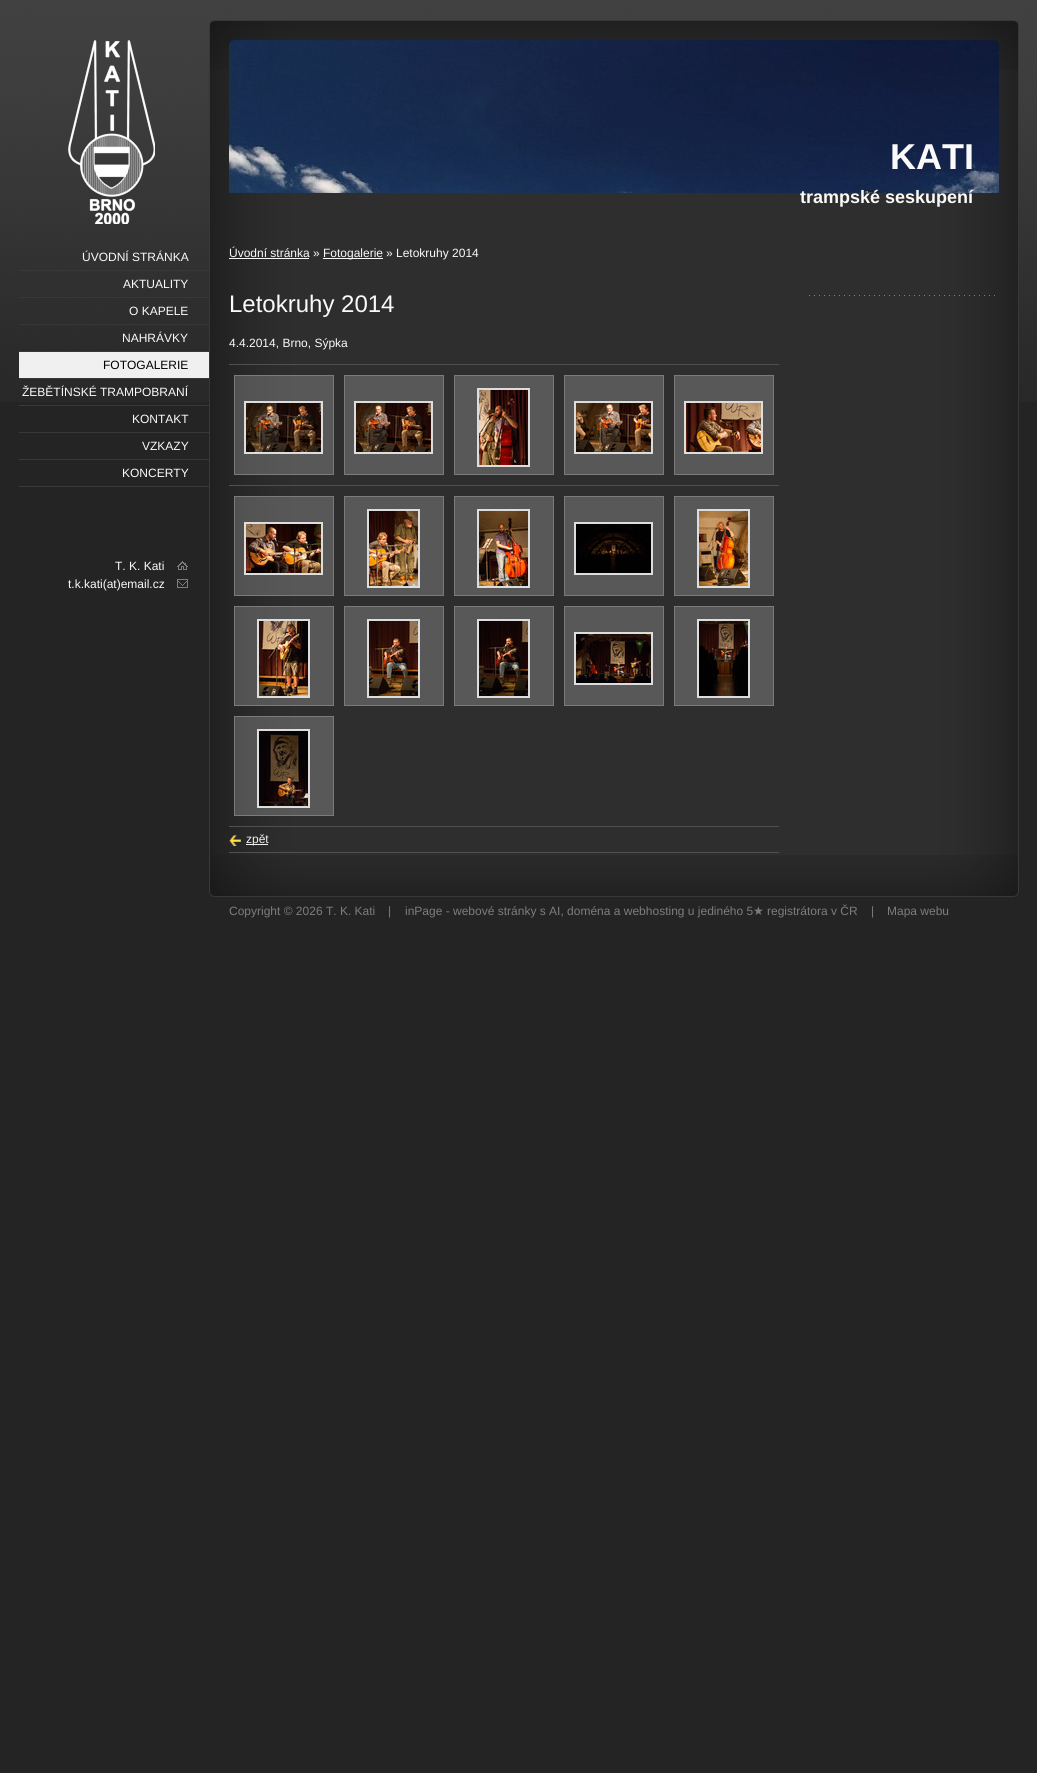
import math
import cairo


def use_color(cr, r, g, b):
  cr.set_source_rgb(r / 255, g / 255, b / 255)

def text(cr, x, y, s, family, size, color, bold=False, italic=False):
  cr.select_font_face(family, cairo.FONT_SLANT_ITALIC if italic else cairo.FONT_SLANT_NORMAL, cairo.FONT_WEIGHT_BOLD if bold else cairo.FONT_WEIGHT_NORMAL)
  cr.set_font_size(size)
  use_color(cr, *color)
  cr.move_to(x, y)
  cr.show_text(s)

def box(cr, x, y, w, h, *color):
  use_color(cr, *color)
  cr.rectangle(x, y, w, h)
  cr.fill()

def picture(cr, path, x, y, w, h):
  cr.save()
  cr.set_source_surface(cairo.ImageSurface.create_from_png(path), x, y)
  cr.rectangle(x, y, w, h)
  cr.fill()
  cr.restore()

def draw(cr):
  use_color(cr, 36, 36, 36)
  cr.paint()
  picture(cr, "img_01.png", 0, 0, 1037, 402)
  picture(cr, "img_02.png", 68, 40, 87, 184)
  picture(cr, "img_03.png", 68, 40, 87, 184)
  picture(cr, "img_09.png", 209, 70, 810, 785)
  picture(cr, "img_10.png", 209, 20, 810, 50)
  picture(cr, "img_04.png", 229, 40, 770, 153)
  picture(cr, "img_05.png", 229, 40, 6, 6)
  picture(cr, "img_06.png", 994, 40, 5, 5)
  box(cr, 19, 270, 190, 1, 56, 56, 56)
  box(cr, 19, 297, 190, 1, 56, 56, 56)
  box(cr, 19, 324, 190, 1, 56, 56, 56)
  box(cr, 19, 351, 190, 1, 56, 56, 56)
  box(cr, 19, 352, 190, 26, 240, 240, 240)
  box(cr, 19, 378, 190, 1, 56, 56, 56)
  box(cr, 19, 405, 190, 1, 56, 56, 56)
  box(cr, 19, 432, 190, 1, 56, 56, 56)
  box(cr, 19, 459, 190, 1, 56, 56, 56)
  box(cr, 19, 486, 190, 1, 56, 56, 56)
  picture(cr, "img_07.png", 177, 561, 11, 9)
  picture(cr, "img_08.png", 177, 579, 11, 9)
  picture(cr, "img_11.png", 209, 855, 810, 42)
  box(cr, 229, 258, 80, 1, 250, 250, 250)
  box(cr, 323, 258, 60, 1, 250, 250, 250)
  box(cr, 229, 364, 550, 1, 80, 80, 80)
  cr.set_source_rgba(1, 1, 1, 0.2)
  cr.rectangle(234.5, 375.5, 99, 99)
  cr.fill_preserve()
  use_color(cr, 123, 123, 123)
  cr.set_line_width(1)
  cr.stroke()
  cr.rectangle(245, 402, 77, 51)
  use_color(cr, 221, 221, 221)
  cr.set_line_width(2)
  cr.stroke()
  picture(cr, "img_12.png", 246, 403, 75, 49)
  use_color(cr, 88, 88, 88)
  cr.rectangle(344.5, 375.5, 99, 99)
  cr.fill_preserve()
  use_color(cr, 123, 123, 123)
  cr.set_line_width(1)
  cr.stroke()
  cr.rectangle(355, 402, 77, 51)
  use_color(cr, 221, 221, 221)
  cr.set_line_width(2)
  cr.stroke()
  picture(cr, "img_13.png", 356, 403, 75, 49)
  use_color(cr, 88, 88, 88)
  cr.rectangle(454.5, 375.5, 99, 99)
  cr.fill_preserve()
  use_color(cr, 123, 123, 123)
  cr.set_line_width(1)
  cr.stroke()
  cr.rectangle(478, 389, 51, 77)
  use_color(cr, 221, 221, 221)
  cr.set_line_width(2)
  cr.stroke()
  picture(cr, "img_14.png", 479, 390, 49, 75)
  use_color(cr, 88, 88, 88)
  cr.rectangle(564.5, 375.5, 99, 99)
  cr.fill_preserve()
  use_color(cr, 123, 123, 123)
  cr.set_line_width(1)
  cr.stroke()
  cr.rectangle(575, 402, 77, 51)
  use_color(cr, 221, 221, 221)
  cr.set_line_width(2)
  cr.stroke()
  picture(cr, "img_15.png", 576, 403, 75, 49)
  use_color(cr, 88, 88, 88)
  cr.rectangle(674.5, 375.5, 99, 99)
  cr.fill_preserve()
  use_color(cr, 123, 123, 123)
  cr.set_line_width(1)
  cr.stroke()
  cr.rectangle(685, 402, 77, 51)
  use_color(cr, 221, 221, 221)
  cr.set_line_width(2)
  cr.stroke()
  picture(cr, "img_16.png", 686, 403, 75, 49)
  box(cr, 229, 485, 550, 1, 80, 80, 80)
  cr.set_source_rgba(1, 1, 1, 0.2)
  cr.rectangle(234.5, 496.5, 99, 99)
  cr.fill_preserve()
  use_color(cr, 123, 123, 123)
  cr.set_line_width(1)
  cr.stroke()
  cr.rectangle(245, 523, 77, 51)
  use_color(cr, 221, 221, 221)
  cr.set_line_width(2)
  cr.stroke()
  picture(cr, "img_17.png", 246, 524, 75, 49)
  use_color(cr, 88, 88, 88)
  cr.rectangle(344.5, 496.5, 99, 99)
  cr.fill_preserve()
  use_color(cr, 123, 123, 123)
  cr.set_line_width(1)
  cr.stroke()
  cr.rectangle(368, 510, 51, 77)
  use_color(cr, 221, 221, 221)
  cr.set_line_width(2)
  cr.stroke()
  picture(cr, "img_18.png", 369, 511, 49, 75)
  use_color(cr, 88, 88, 88)
  cr.rectangle(454.5, 496.5, 99, 99)
  cr.fill_preserve()
  use_color(cr, 123, 123, 123)
  cr.set_line_width(1)
  cr.stroke()
  cr.rectangle(478, 510, 51, 77)
  use_color(cr, 221, 221, 221)
  cr.set_line_width(2)
  cr.stroke()
  picture(cr, "img_19.png", 479, 511, 49, 75)
  use_color(cr, 88, 88, 88)
  cr.rectangle(564.5, 496.5, 99, 99)
  cr.fill_preserve()
  use_color(cr, 123, 123, 123)
  cr.set_line_width(1)
  cr.stroke()
  cr.rectangle(575, 523, 77, 51)
  use_color(cr, 221, 221, 221)
  cr.set_line_width(2)
  cr.stroke()
  picture(cr, "img_20.png", 576, 524, 75, 49)
  use_color(cr, 88, 88, 88)
  cr.rectangle(674.5, 496.5, 99, 99)
  cr.fill_preserve()
  use_color(cr, 123, 123, 123)
  cr.set_line_width(1)
  cr.stroke()
  cr.rectangle(698, 510, 51, 77)
  use_color(cr, 221, 221, 221)
  cr.set_line_width(2)
  cr.stroke()
  picture(cr, "img_21.png", 699, 511, 49, 75)
  cr.set_source_rgba(1, 1, 1, 0.2)
  cr.rectangle(234.5, 606.5, 99, 99)
  cr.fill_preserve()
  use_color(cr, 123, 123, 123)
  cr.set_line_width(1)
  cr.stroke()
  cr.rectangle(258, 620, 51, 77)
  use_color(cr, 221, 221, 221)
  cr.set_line_width(2)
  cr.stroke()
  picture(cr, "img_22.png", 259, 621, 49, 75)
  use_color(cr, 88, 88, 88)
  cr.rectangle(344.5, 606.5, 99, 99)
  cr.fill_preserve()
  use_color(cr, 123, 123, 123)
  cr.set_line_width(1)
  cr.stroke()
  cr.rectangle(368, 620, 51, 77)
  use_color(cr, 221, 221, 221)
  cr.set_line_width(2)
  cr.stroke()
  picture(cr, "img_23.png", 369, 621, 49, 75)
  use_color(cr, 88, 88, 88)
  cr.rectangle(454.5, 606.5, 99, 99)
  cr.fill_preserve()
  use_color(cr, 123, 123, 123)
  cr.set_line_width(1)
  cr.stroke()
  cr.rectangle(478, 620, 51, 77)
  use_color(cr, 221, 221, 221)
  cr.set_line_width(2)
  cr.stroke()
  picture(cr, "img_24.png", 479, 621, 49, 75)
  use_color(cr, 88, 88, 88)
  cr.rectangle(564.5, 606.5, 99, 99)
  cr.fill_preserve()
  use_color(cr, 123, 123, 123)
  cr.set_line_width(1)
  cr.stroke()
  cr.rectangle(575, 633, 77, 51)
  use_color(cr, 221, 221, 221)
  cr.set_line_width(2)
  cr.stroke()
  picture(cr, "img_25.png", 576, 634, 75, 49)
  use_color(cr, 88, 88, 88)
  cr.rectangle(674.5, 606.5, 99, 99)
  cr.fill_preserve()
  use_color(cr, 123, 123, 123)
  cr.set_line_width(1)
  cr.stroke()
  cr.rectangle(698, 620, 51, 77)
  use_color(cr, 221, 221, 221)
  cr.set_line_width(2)
  cr.stroke()
  picture(cr, "img_26.png", 699, 621, 49, 75)
  cr.set_source_rgba(1, 1, 1, 0.2)
  cr.rectangle(234.5, 716.5, 99, 99)
  cr.fill_preserve()
  use_color(cr, 123, 123, 123)
  cr.set_line_width(1)
  cr.stroke()
  cr.rectangle(258, 730, 51, 77)
  use_color(cr, 221, 221, 221)
  cr.set_line_width(2)
  cr.stroke()
  picture(cr, "img_27.png", 259, 731, 49, 75)
  box(cr, 229, 826, 550, 1, 80, 80, 80)
  box(cr, 229, 852, 550, 1, 80, 80, 80)
  picture(cr, "img_28.png", 229, 835, 12, 11)
  box(cr, 246, 844, 22, 1, 240, 240, 240)
  picture(cr, "img_29.png", 809, 295, 186, 1)
  text(cr, 890, 169, "KATI", "Liberation Sans", 36, (250, 250, 250), bold=True)
  text(cr, 800, 203, "trampské seskupení", "Liberation Sans", 18, (250, 250, 250), bold=True)
  text(cr, 82, 261, "ÚVODNÍ STRÁNKA", "Liberation Sans", 12, (250, 250, 250))
  text(cr, 123, 288, "AKTUALITY", "Liberation Sans", 12, (250, 250, 250))
  text(cr, 129, 315, "O KAPELE", "Liberation Sans", 12, (250, 250, 250))
  text(cr, 122, 342, "NAHRÁVKY", "Liberation Sans", 12, (250, 250, 250))
  text(cr, 103, 369, "FOTOGALERIE", "Liberation Sans", 12, (0, 0, 0))
  text(cr, 22, 396, "ŽEBĚTÍNSKÉ TRAMPOBRANÍ", "Liberation Sans", 12, (250, 250, 250))
  text(cr, 132, 423, "KONTAKT", "Liberation Sans", 12, (250, 250, 250))
  text(cr, 142, 450, "VZKAZY", "Liberation Sans", 12, (250, 250, 250))
  text(cr, 122, 477, "KONCERTY", "Liberation Sans", 12, (250, 250, 250))
  text(cr, 115, 570, "T. K. Kati", "Liberation Sans", 12, (250, 250, 250))
  text(cr, 68, 588, "t.k.kati(at)email.cz", "Liberation Sans", 12, (250, 250, 250))
  text(cr, 229, 257, "Úvodní stránka", "Liberation Sans", 12, (250, 250, 250))
  text(cr, 313, 257, "»", "Liberation Sans", 12, (250, 250, 250))
  text(cr, 323, 257, "Fotogalerie", "Liberation Sans", 12, (250, 250, 250))
  text(cr, 386, 257, "» Letokruhy 2014", "Liberation Sans", 12, (250, 250, 250))
  text(cr, 229, 312, "Letokruhy 2014", "Liberation Sans", 24, (250, 250, 250))
  text(cr, 229, 347, "4.4.2014, Brno, Sýpka", "Liberation Sans", 12, (250, 250, 250))
  text(cr, 246, 843, "zpět", "Liberation Sans", 12, (240, 240, 240))
  text(cr, 229, 915, "Copyright © 2026 T. K. Kati", "Liberation Sans", 12, (125, 125, 125))
  text(cr, 388, 915, "|", "Liberation Sans", 12, (125, 125, 125))
  text(cr, 405, 915, "inPage - webové stránky s AI, doména a webhosting u jediného 5", "Liberation Sans", 12, (125, 125, 125))
  text(cr, 753, 915, "★", "DejaVu Sans", 12, (125, 125, 125))
  text(cr, 767, 915, "registrátora v ČR", "Liberation Sans", 12, (125, 125, 125))
  text(cr, 871, 915, "|", "Liberation Sans", 12, (125, 125, 125))
  text(cr, 887, 915, "Mapa webu", "Liberation Sans", 12, (125, 125, 125))


surface = cairo.ImageSurface(cairo.FORMAT_RGB24, 1037, 1773)
cr = cairo.Context(surface)
options = cairo.FontOptions()
options.set_hint_metrics(cairo.HINT_METRICS_OFF)
options.set_hint_style(cairo.HINT_STYLE_NONE)
cr.set_font_options(options)
cr.set_miter_limit(4)
draw(cr)
surface.write_to_png("out.png")
